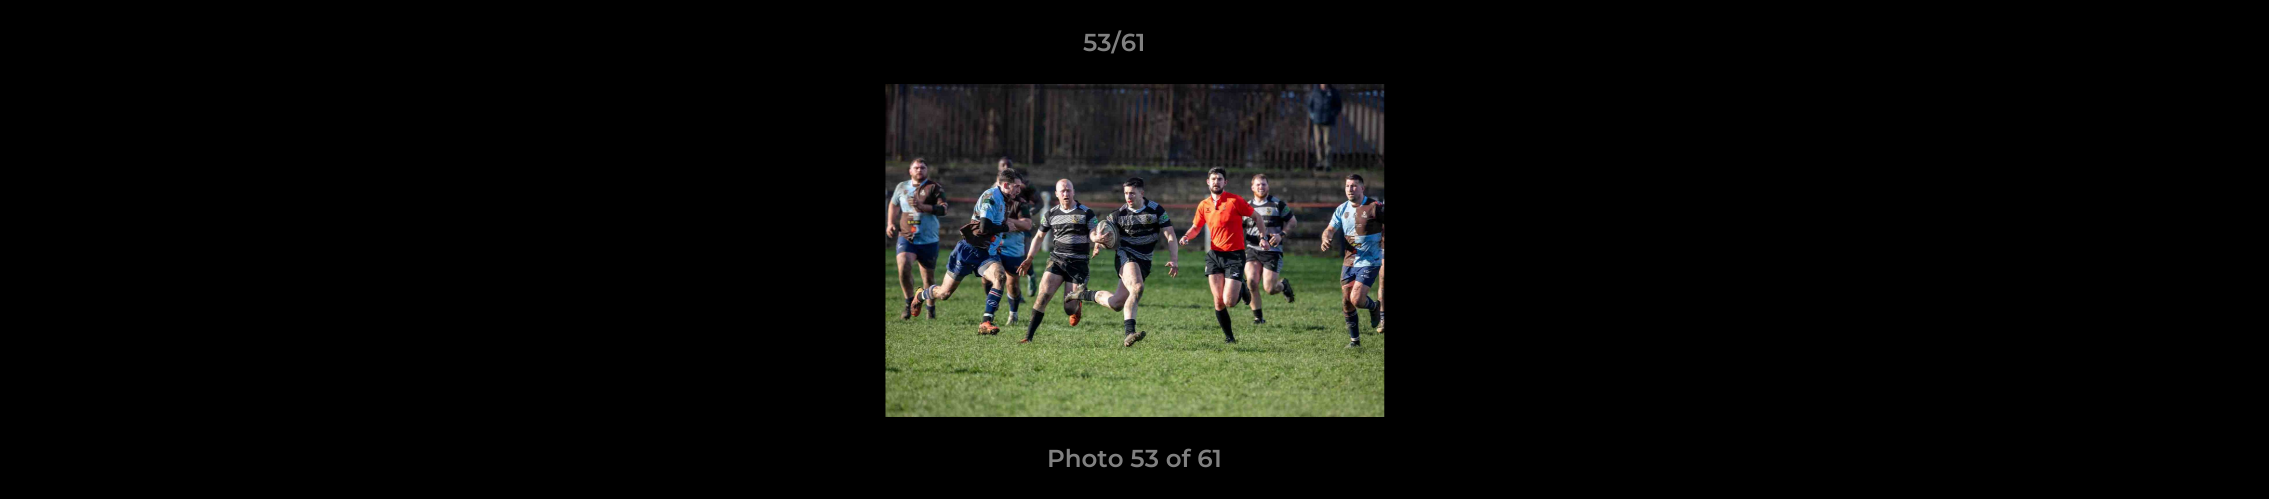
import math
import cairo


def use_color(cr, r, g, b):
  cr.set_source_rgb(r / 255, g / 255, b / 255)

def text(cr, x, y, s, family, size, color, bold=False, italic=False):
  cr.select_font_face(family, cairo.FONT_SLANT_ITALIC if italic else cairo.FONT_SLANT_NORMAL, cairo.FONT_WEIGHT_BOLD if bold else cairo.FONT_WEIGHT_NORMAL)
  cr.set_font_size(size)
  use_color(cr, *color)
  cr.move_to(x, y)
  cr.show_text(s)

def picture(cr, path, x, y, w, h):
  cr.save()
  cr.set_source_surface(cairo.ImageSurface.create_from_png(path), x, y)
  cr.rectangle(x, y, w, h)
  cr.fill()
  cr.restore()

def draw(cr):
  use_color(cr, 0, 0, 0)
  cr.paint()
  picture(cr, "img_01.png", 885, 84, 500, 333)
  text(cr, 1083, 51, "53/61", "Montserrat SemiBold", 24.5, (128, 128, 128))
  text(cr, 1047, 467, "Photo 53 of 61", "Montserrat SemiBold", 24.5, (128, 128, 128))


surface = cairo.ImageSurface(cairo.FORMAT_RGB24, 2269, 499)
cr = cairo.Context(surface)
options = cairo.FontOptions()
options.set_hint_metrics(cairo.HINT_METRICS_OFF)
options.set_hint_style(cairo.HINT_STYLE_NONE)
cr.set_font_options(options)
cr.set_miter_limit(4)
draw(cr)
surface.write_to_png("out.png")
